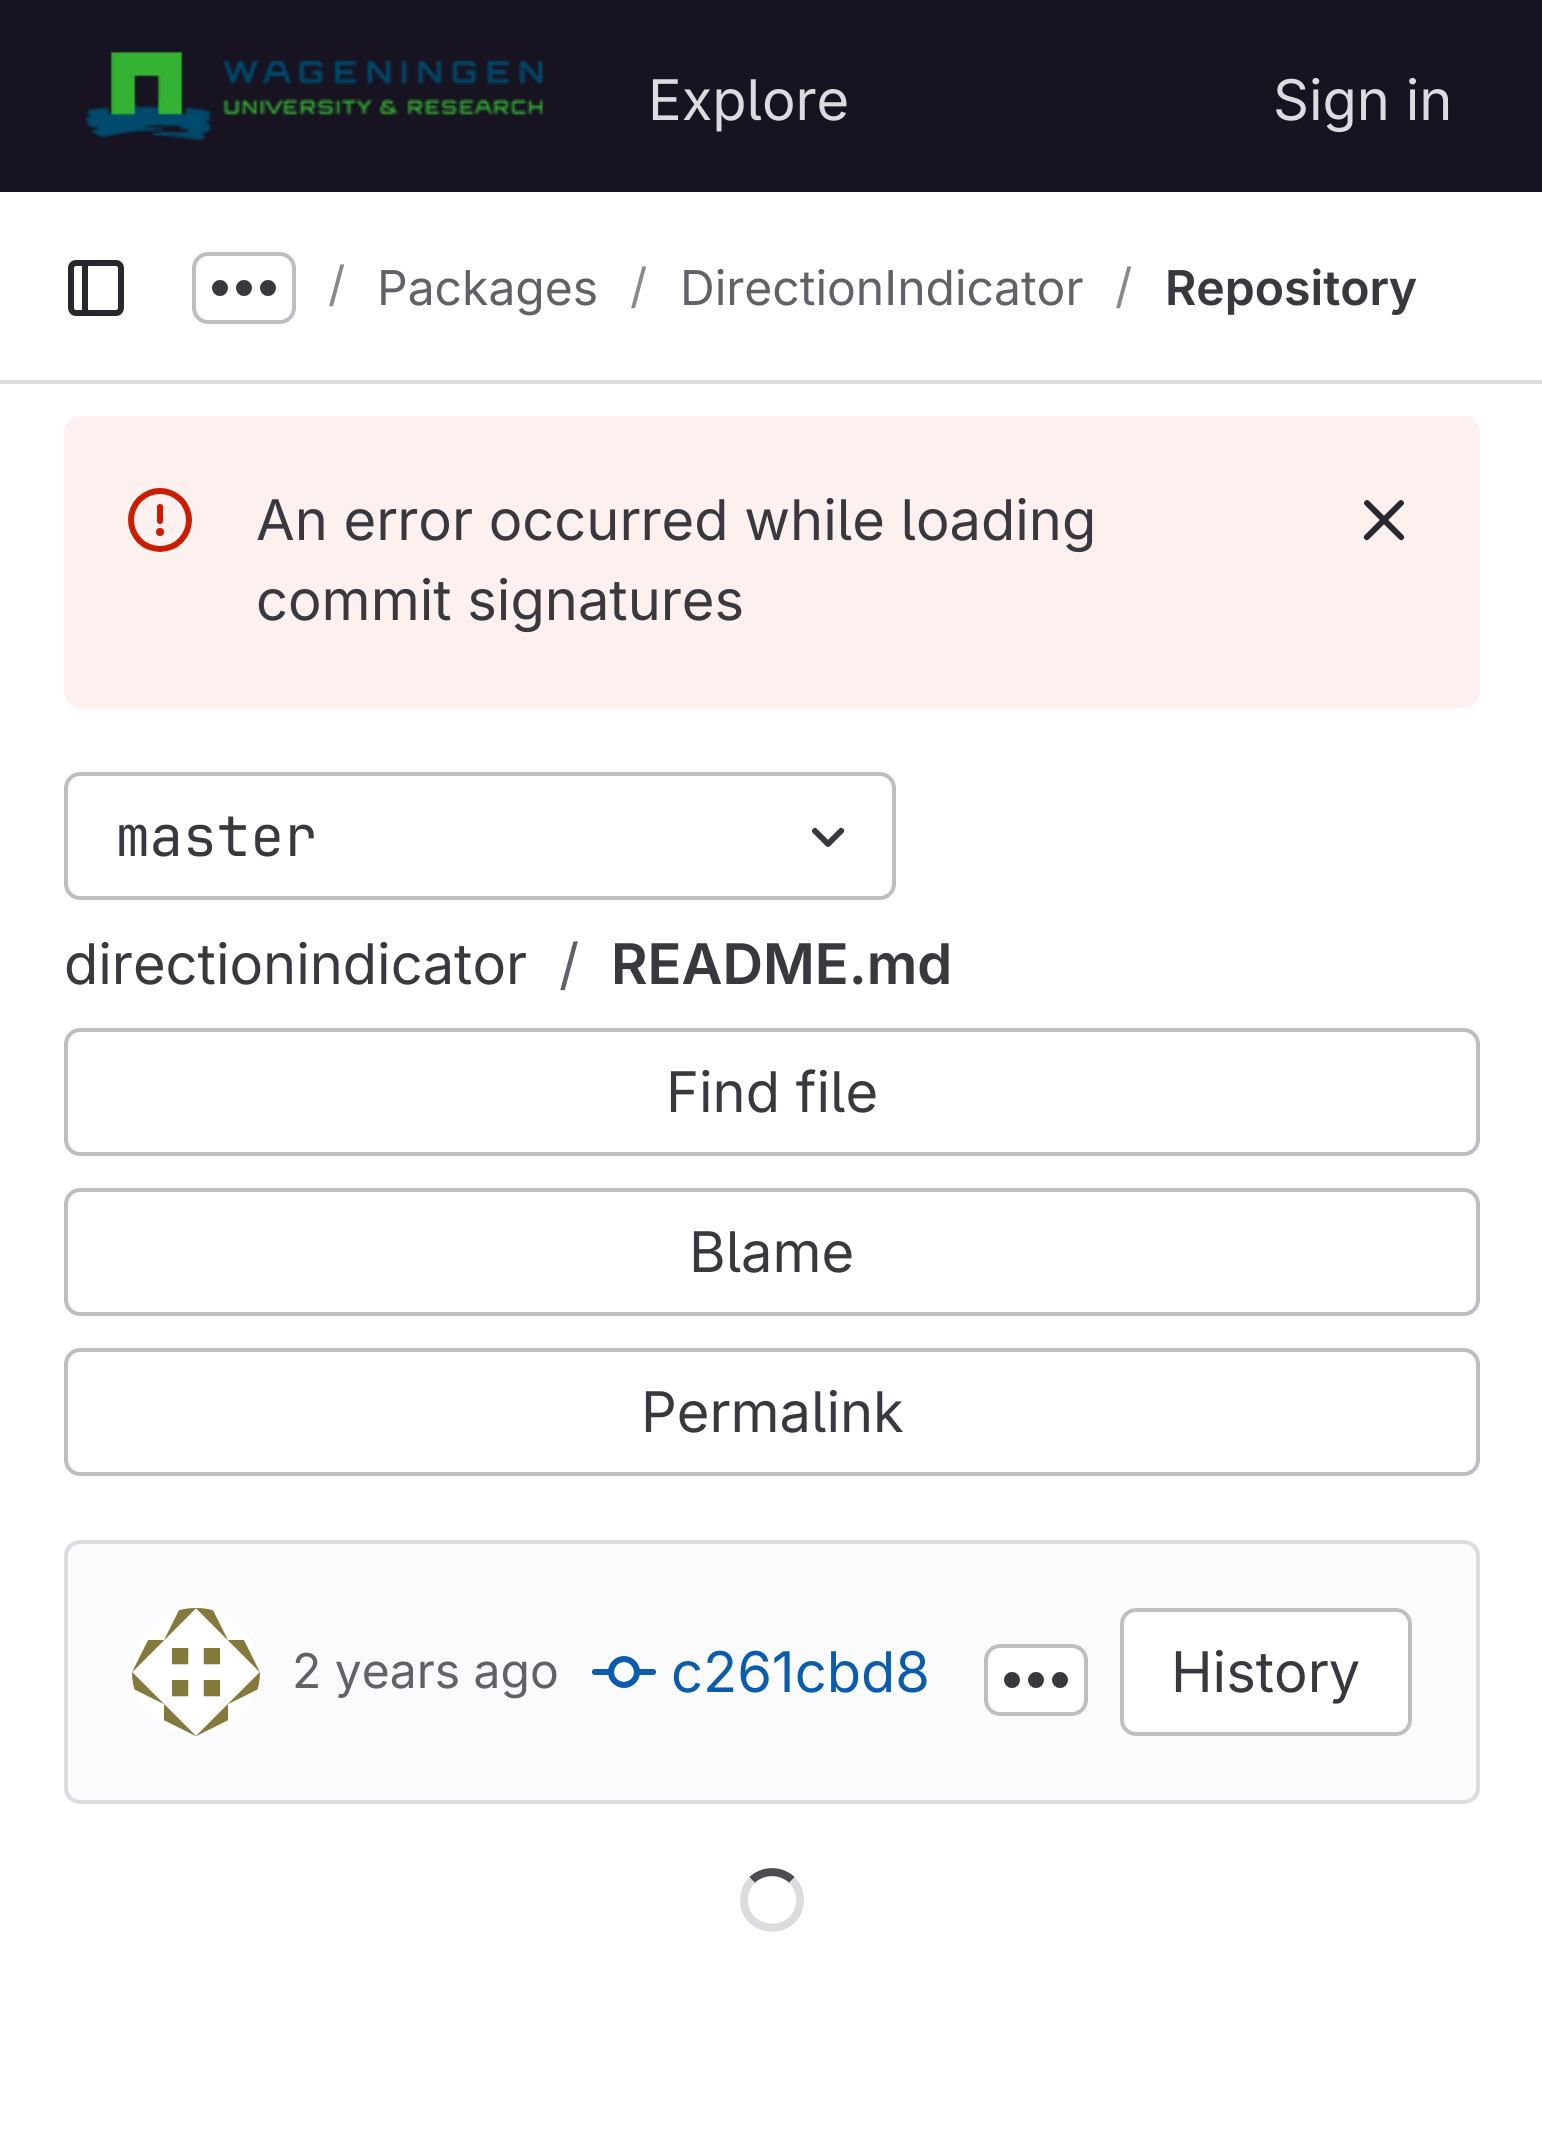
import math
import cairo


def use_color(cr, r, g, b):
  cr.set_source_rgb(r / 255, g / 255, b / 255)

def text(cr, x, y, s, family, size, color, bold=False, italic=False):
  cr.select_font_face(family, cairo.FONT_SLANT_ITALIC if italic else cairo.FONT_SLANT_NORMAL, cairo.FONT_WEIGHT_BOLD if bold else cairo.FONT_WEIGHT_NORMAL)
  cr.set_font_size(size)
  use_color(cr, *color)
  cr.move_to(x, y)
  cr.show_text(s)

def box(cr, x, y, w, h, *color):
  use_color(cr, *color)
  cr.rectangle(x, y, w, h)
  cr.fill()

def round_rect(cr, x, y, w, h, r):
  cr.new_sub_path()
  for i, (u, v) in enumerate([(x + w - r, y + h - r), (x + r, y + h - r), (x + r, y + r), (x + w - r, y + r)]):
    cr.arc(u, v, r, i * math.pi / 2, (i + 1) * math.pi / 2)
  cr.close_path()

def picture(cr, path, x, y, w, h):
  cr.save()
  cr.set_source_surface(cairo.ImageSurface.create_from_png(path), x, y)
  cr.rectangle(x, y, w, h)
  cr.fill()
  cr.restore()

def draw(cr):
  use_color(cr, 255, 255, 255)
  cr.paint()
  box(cr, 0, 0, 1542, 192, 23, 19, 33)
  picture(cr, "img_01.png", 85, 51, 460, 90)
  box(cr, 0, 380, 1542, 4, 220, 220, 222)
  picture(cr, "img_02.png", 68, 260, 56, 56)
  round_rect(cr, 194, 254, 100, 68, 14)
  use_color(cr, 191, 191, 195)
  cr.set_line_width(4)
  cr.stroke()
  picture(cr, "img_03.png", 212, 280, 64, 16)
  use_color(cr, 252, 241, 239)
  round_rect(cr, 64, 416, 1416, 292, 16)
  cr.fill()
  picture(cr, "img_04.png", 128, 488, 64, 64)
  picture(cr, "img_05.png", 1363, 500, 42, 41)
  round_rect(cr, 66, 774, 828, 124, 14)
  use_color(cr, 191, 191, 195)
  cr.stroke()
  picture(cr, "img_06.png", 811, 827, 34, 21)
  round_rect(cr, 66, 1030, 1412, 124, 14)
  cr.stroke()
  round_rect(cr, 66, 1190, 1412, 124, 14)
  cr.stroke()
  round_rect(cr, 66, 1350, 1412, 124, 14)
  cr.stroke()
  use_color(cr, 251, 250, 253)
  round_rect(cr, 66, 1542, 1412, 260, 14)
  cr.fill_preserve()
  use_color(cr, 220, 220, 222)
  cr.stroke()
  cr.arc(196, 1672, 62, 0, 2 * math.pi)
  use_color(cr, 231, 230, 233)
  cr.stroke()
  picture(cr, "img_07.png", 132, 1608, 128, 128)
  picture(cr, "img_08.png", 592, 1656, 64, 32)
  use_color(cr, 255, 255, 255)
  round_rect(cr, 986, 1646, 100, 68, 14)
  cr.fill_preserve()
  use_color(cr, 191, 191, 195)
  cr.stroke()
  picture(cr, "img_09.png", 1004, 1672, 64, 16)
  use_color(cr, 255, 255, 255)
  round_rect(cr, 1122, 1610, 288, 124, 14)
  cr.fill_preserve()
  use_color(cr, 191, 191, 195)
  cr.stroke()
  cr.new_path()
  cr.move_to(752, 1880)
  cr.curve_to(763, 1869.5, 781, 1869.5, 792, 1880)
  use_color(cr, 76, 75, 81)
  cr.set_line_width(8)
  cr.stroke()
  cr.new_path()
  cr.move_to(792, 1880)
  cr.curve_to(798.5, 1887, 801.5, 1896.5, 799.5, 1905.5)
  cr.curve_to(793, 1938, 744, 1933.5, 744, 1900)
  cr.curve_to(744, 1892.5, 747, 1885.5, 752, 1880)
  use_color(cr, 220, 220, 222)
  cr.stroke()
  text(cr, 648, 120, "Explore", "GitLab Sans", 56, (220, 220, 222))
  text(cr, 1273, 120, "Sign in", "GitLab Sans", 56, (220, 220, 222))
  text(cr, 328, 301, "/", "GitLab Sans", 48, (137, 136, 141))
  text(cr, 377, 305, "Packages", "GitLab Sans", 48, (98, 97, 104))
  text(cr, 630, 303, "/", "GitLab Sans", 48, (137, 136, 141))
  text(cr, 680, 305, "DirectionIndicator", "GitLab Sans", 48, (98, 97, 104))
  text(cr, 1115, 303, "/", "GitLab Sans", 48, (137, 136, 141))
  text(cr, 1165, 305, "Repository", "GitLab Sans SemiBold", 48, (58, 56, 63))
  text(cr, 256, 540, "An error occurred while loading", "GitLab Sans", 56, (58, 56, 63))
  text(cr, 256, 620, "commit signatures", "GitLab Sans", 56, (58, 56, 63))
  text(cr, 116, 856, "master", "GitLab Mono", 56, (58, 56, 63))
  text(cr, 64, 984, "directionindicator", "GitLab Sans", 56, (58, 56, 63))
  text(cr, 559, 984, "/", "GitLab Sans", 56, (98, 97, 104))
  text(cr, 611, 984, "README.md", "GitLab Sans SemiBold", 56, (58, 56, 63))
  text(cr, 666, 1112, "Find file", "GitLab Sans", 56, (58, 56, 63))
  text(cr, 689, 1272, "Blame", "GitLab Sans", 56, (58, 56, 63))
  text(cr, 641, 1432, "Permalink", "GitLab Sans", 56, (58, 56, 63))
  text(cr, 292, 1688, "2 years ago", "GitLab Sans", 48, (98, 97, 104))
  text(cr, 671, 1692, "c261cbd8", "GitLab Sans", 56, (11, 92, 173))
  text(cr, 1171, 1692, "History", "GitLab Sans", 56, (58, 56, 63))


surface = cairo.ImageSurface(cairo.FORMAT_RGB24, 1542, 2145)
cr = cairo.Context(surface)
options = cairo.FontOptions()
options.set_hint_metrics(cairo.HINT_METRICS_OFF)
options.set_hint_style(cairo.HINT_STYLE_NONE)
cr.set_font_options(options)
cr.set_miter_limit(4)
draw(cr)
surface.write_to_png("out.png")
